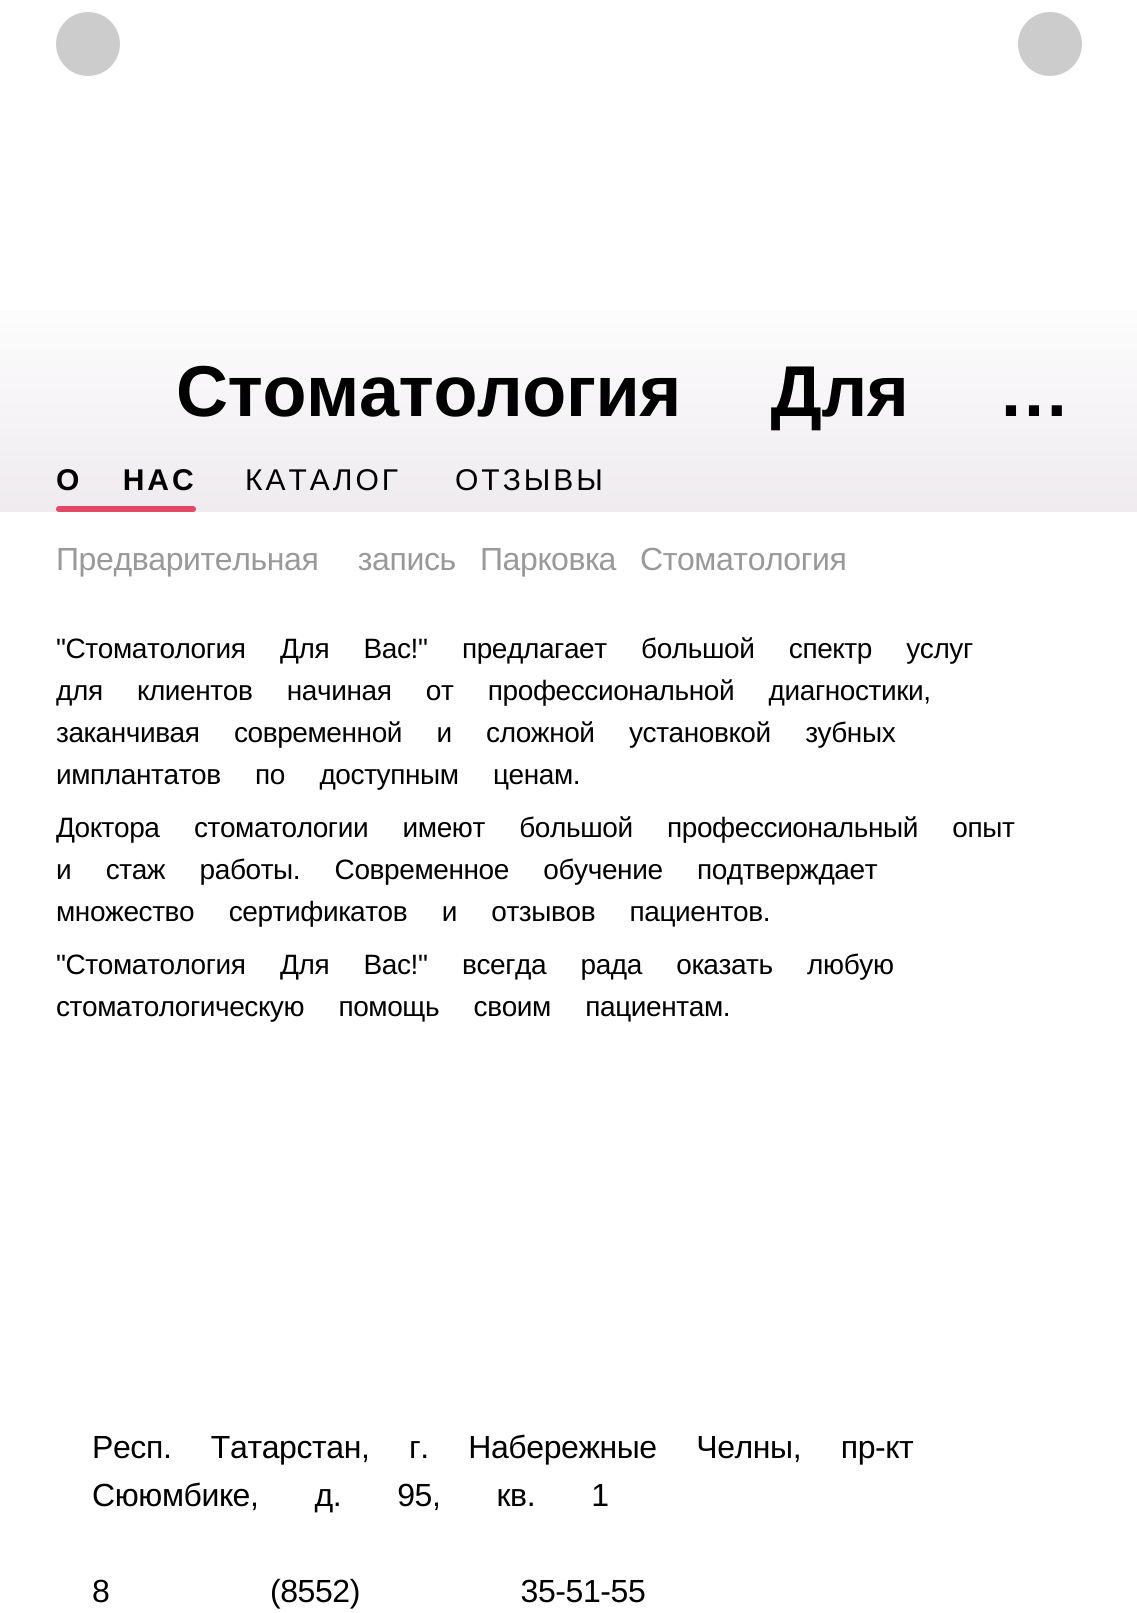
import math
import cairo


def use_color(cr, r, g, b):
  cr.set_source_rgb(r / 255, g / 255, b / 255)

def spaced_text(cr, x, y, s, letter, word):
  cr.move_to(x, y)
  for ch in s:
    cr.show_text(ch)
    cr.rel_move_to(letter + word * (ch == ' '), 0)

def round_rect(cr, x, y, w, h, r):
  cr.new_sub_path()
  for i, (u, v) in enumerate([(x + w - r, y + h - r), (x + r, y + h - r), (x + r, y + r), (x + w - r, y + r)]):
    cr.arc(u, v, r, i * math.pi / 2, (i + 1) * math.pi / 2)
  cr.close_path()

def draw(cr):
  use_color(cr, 255, 255, 255)
  cr.paint()
  use_color(cr, 204, 204, 204)
  cr.arc(88, 44, 32, 0, 2 * math.pi)
  cr.fill()
  cr.arc(1050, 44, 32, 0, 2 * math.pi)
  cr.fill()
  gradient = cairo.LinearGradient(569, 512, 569, 0)
  gradient.add_color_stop_rgba(0, 0.937, 0.922, 0.937, 1)
  gradient.add_color_stop_rgba(0.45, 1, 1, 1, 1)
  cr.set_source(gradient)
  cr.rectangle(0, 310, 1137, 202)
  cr.fill()
  use_color(cr, 228, 71, 102)
  round_rect(cr, 56, 506, 140, 6, 3)
  cr.fill()
  cr.select_font_face("Liberation Sans", cairo.FONT_SLANT_NORMAL, cairo.FONT_WEIGHT_BOLD)
  cr.set_font_size(72)
  use_color(cr, 0, 0, 0)
  spaced_text(cr, 176, 416, "Стоматология Для …", -0.4, 70)
  cr.set_font_size(30)
  spaced_text(cr, 56, 490, "О НАС", 3, 29)
  cr.select_font_face("Liberation Sans")
  spaced_text(cr, 245, 490, "КАТАЛОГ", 3, 0)
  spaced_text(cr, 455, 490, "ОТЗЫВЫ", 3, 0)
  cr.set_font_size(32)
  use_color(cr, 153, 153, 153)
  spaced_text(cr, 56, 570, "Предварительная запись", -0.4, 31)
  spaced_text(cr, 480, 570, "Парковка", -0.4, 0)
  spaced_text(cr, 640, 570, "Стоматология", -0.4, 0)
  cr.set_font_size(28)
  use_color(cr, 0, 0, 0)
  spaced_text(cr, 56, 658, "\"Стоматология Для Вас!\" предлагает большой спектр услуг", -0.4, 27)
  spaced_text(cr, 56, 700, "для клиентов начиная от профессиональной диагностики,", -0.4, 27)
  spaced_text(cr, 56, 742, "заканчивая современной и сложной установкой зубных", -0.4, 27)
  spaced_text(cr, 56, 784, "имплантатов по доступным ценам.", -0.4, 27)
  spaced_text(cr, 56, 837, "Доктора стоматологии имеют большой профессиональный опыт", -0.4, 27)
  spaced_text(cr, 56, 879, "и стаж работы. Современное обучение подтверждает", -0.4, 27)
  spaced_text(cr, 56, 921, "множество сертификатов и отзывов пациентов.", -0.4, 27)
  spaced_text(cr, 56, 974, "\"Стоматология Для Вас!\" всегда рада оказать любую", -0.4, 27)
  spaced_text(cr, 56, 1016, "стоматологическую помощь своим пациентам.", -0.4, 27)
  cr.set_font_size(32)
  spaced_text(cr, 92, 1458, "Респ. Татарстан, г. Набережные Челны, пр-кт", -0.4, 31)
  spaced_text(cr, 92, 1506, "Сююмбике, д. 95, кв. 1", -0.4, 47.5)
  spaced_text(cr, 92, 1602, "8 (8552) 35-51-55", -0.4, 152)


surface = cairo.ImageSurface(cairo.FORMAT_RGB24, 1137, 1613)
cr = cairo.Context(surface)
options = cairo.FontOptions()
options.set_hint_metrics(cairo.HINT_METRICS_OFF)
options.set_hint_style(cairo.HINT_STYLE_NONE)
cr.set_font_options(options)
cr.set_miter_limit(4)
draw(cr)
surface.write_to_png("out.png")
